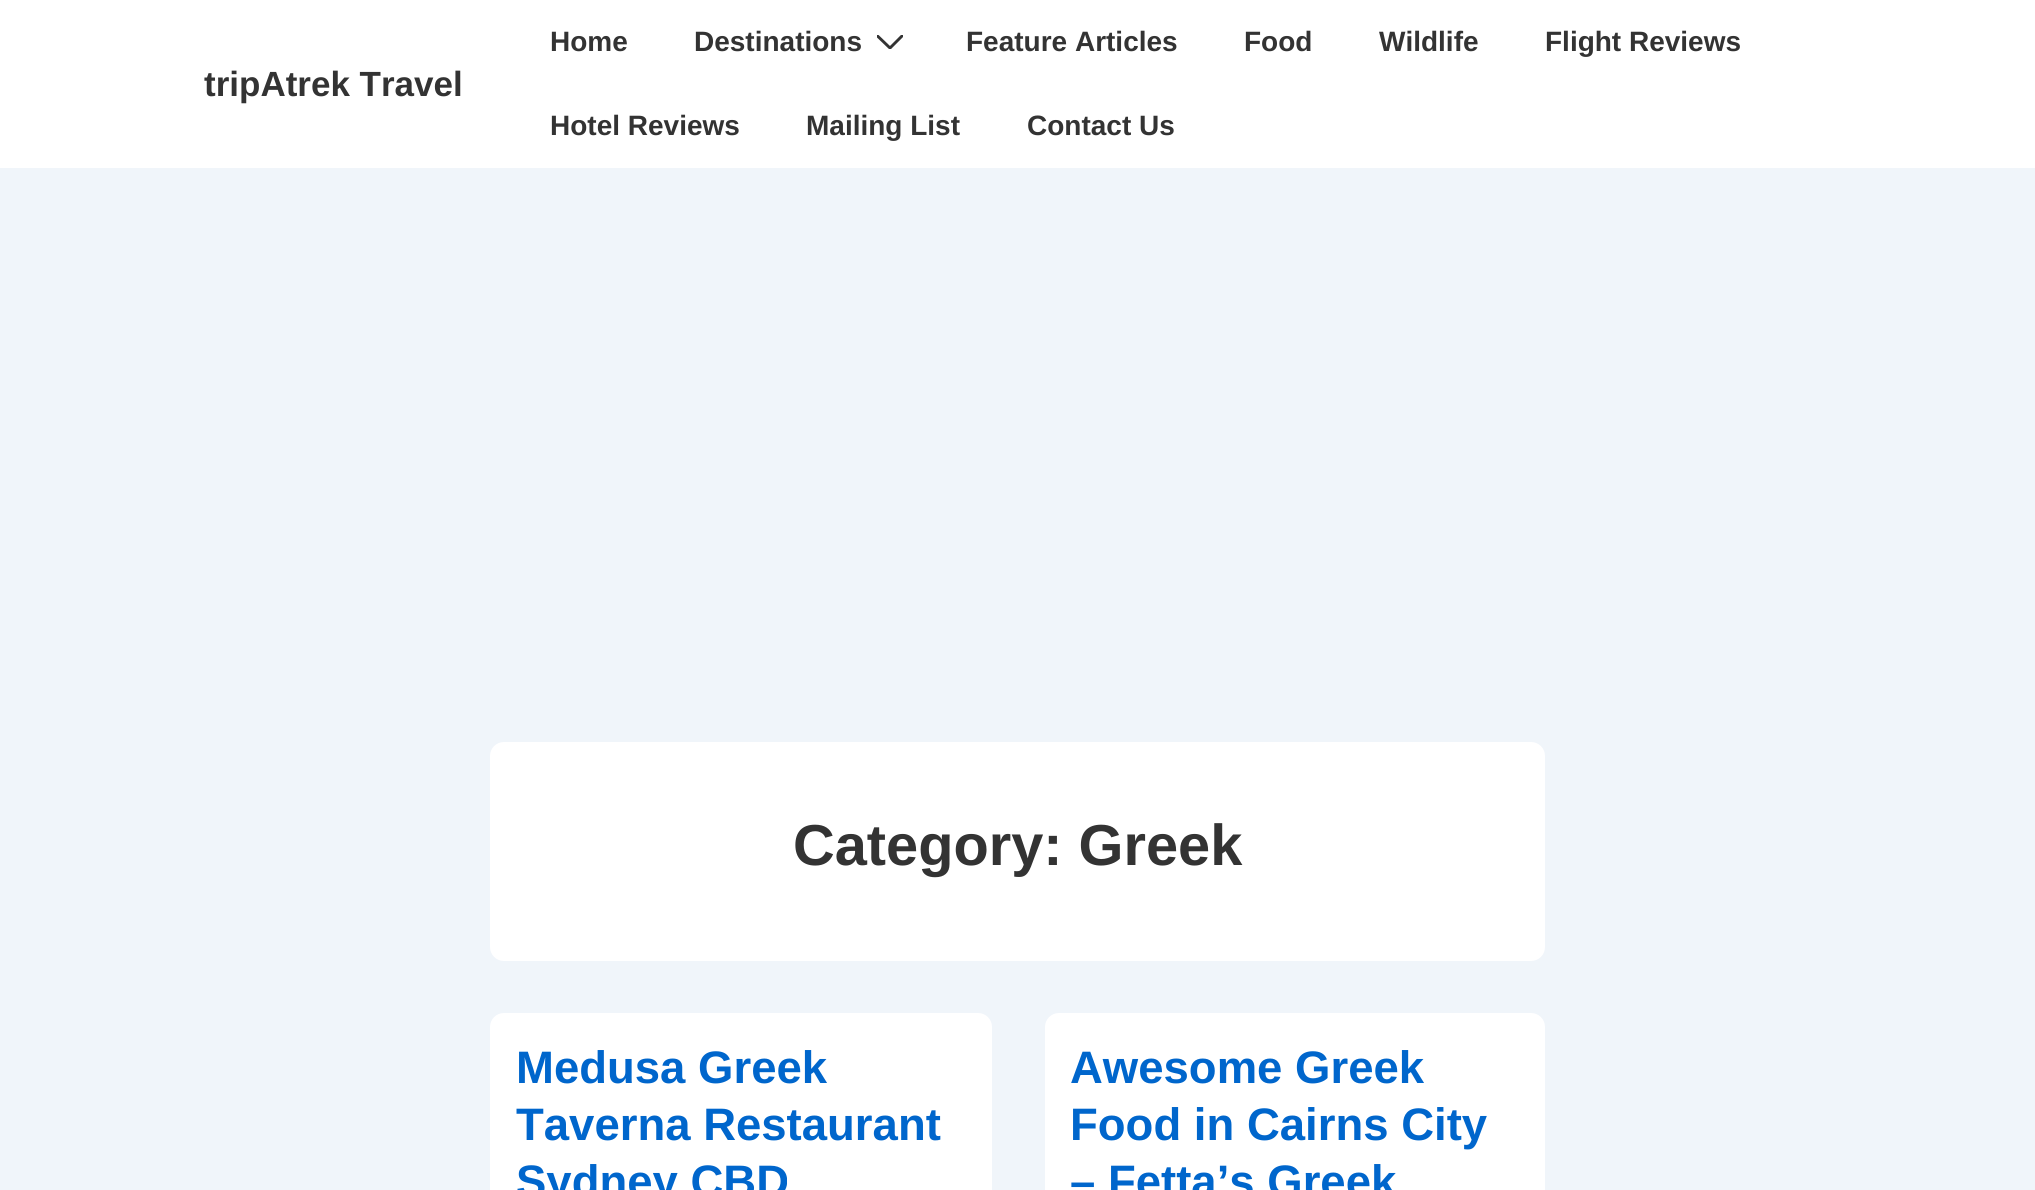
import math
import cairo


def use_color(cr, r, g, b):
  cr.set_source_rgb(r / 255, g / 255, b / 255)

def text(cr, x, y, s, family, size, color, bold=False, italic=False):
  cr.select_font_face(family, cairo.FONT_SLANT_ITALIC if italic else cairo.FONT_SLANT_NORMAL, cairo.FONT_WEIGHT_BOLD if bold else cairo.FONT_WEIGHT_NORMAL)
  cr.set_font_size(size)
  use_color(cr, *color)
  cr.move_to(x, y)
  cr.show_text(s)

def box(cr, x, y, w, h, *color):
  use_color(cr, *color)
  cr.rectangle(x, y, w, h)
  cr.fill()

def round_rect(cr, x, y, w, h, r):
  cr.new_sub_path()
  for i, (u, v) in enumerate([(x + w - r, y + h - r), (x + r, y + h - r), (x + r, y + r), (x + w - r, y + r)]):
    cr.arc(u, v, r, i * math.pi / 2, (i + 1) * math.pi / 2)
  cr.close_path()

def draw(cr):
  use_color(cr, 240, 245, 250)
  cr.paint()
  box(cr, 0, 0, 2035, 168, 255, 255, 255)
  cr.save()
  cr.rectangle(877, 35, 26, 14)
  cr.clip()
  cr.new_path()
  cr.move_to(877.5, 36)
  cr.line_to(890, 48)
  cr.line_to(902, 36)
  use_color(cr, 51, 51, 51)
  cr.set_line_width(2.9)
  cr.set_line_cap(cairo.LINE_CAP_ROUND)
  cr.stroke()
  cr.restore()
  round_rect(cr, 490, 742, 1055, 219, 14)
  cr.fill()
  round_rect(cr, 490, 1013, 502, 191, 14)
  cr.fill()
  round_rect(cr, 1045, 1013, 500, 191, 14)
  cr.fill()
  text(cr, 204, 96, "tripAtrek Travel", "Liberation Sans", 35, (51, 51, 51), bold=True)
  text(cr, 550, 51, "Home", "Liberation Sans", 28, (51, 51, 51), bold=True)
  text(cr, 694, 51, "Destinations", "Liberation Sans", 28, (51, 51, 51), bold=True)
  text(cr, 966, 51, "Feature Articles", "Liberation Sans", 28, (51, 51, 51), bold=True)
  text(cr, 1244, 51, "Food", "Liberation Sans", 28, (51, 51, 51), bold=True)
  text(cr, 1379, 51, "Wildlife", "Liberation Sans", 28, (51, 51, 51), bold=True)
  text(cr, 1545, 51, "Flight Reviews", "Liberation Sans", 28, (51, 51, 51), bold=True)
  text(cr, 550, 135, "Hotel Reviews", "Liberation Sans", 28, (51, 51, 51), bold=True)
  text(cr, 806, 135, "Mailing List", "Liberation Sans", 28, (51, 51, 51), bold=True)
  text(cr, 1027, 135, "Contact Us", "Liberation Sans", 28, (51, 51, 51), bold=True)
  text(cr, 793, 865, "Category: Greek", "Liberation Sans", 57.75, (51, 51, 51), bold=True)
  text(cr, 516, 1083, "Medusa Greek", "Liberation Sans", 45.5, (0, 102, 204), bold=True)
  text(cr, 516, 1140, "Taverna Restaurant", "Liberation Sans", 45.5, (0, 102, 204), bold=True)
  text(cr, 516, 1197, "Sydney CBD", "Liberation Sans", 45.5, (0, 102, 204), bold=True)
  text(cr, 1070, 1083, "Awesome Greek", "Liberation Sans", 45.5, (0, 102, 204), bold=True)
  text(cr, 1070, 1140, "Food in Cairns City", "Liberation Sans", 45.5, (0, 102, 204), bold=True)
  text(cr, 1070, 1197, "– Fetta’s Greek", "Liberation Sans", 45.5, (0, 102, 204), bold=True)


surface = cairo.ImageSurface(cairo.FORMAT_RGB24, 2035, 1190)
cr = cairo.Context(surface)
options = cairo.FontOptions()
options.set_hint_metrics(cairo.HINT_METRICS_OFF)
options.set_hint_style(cairo.HINT_STYLE_NONE)
cr.set_font_options(options)
cr.set_miter_limit(4)
draw(cr)
surface.write_to_png("out.png")
